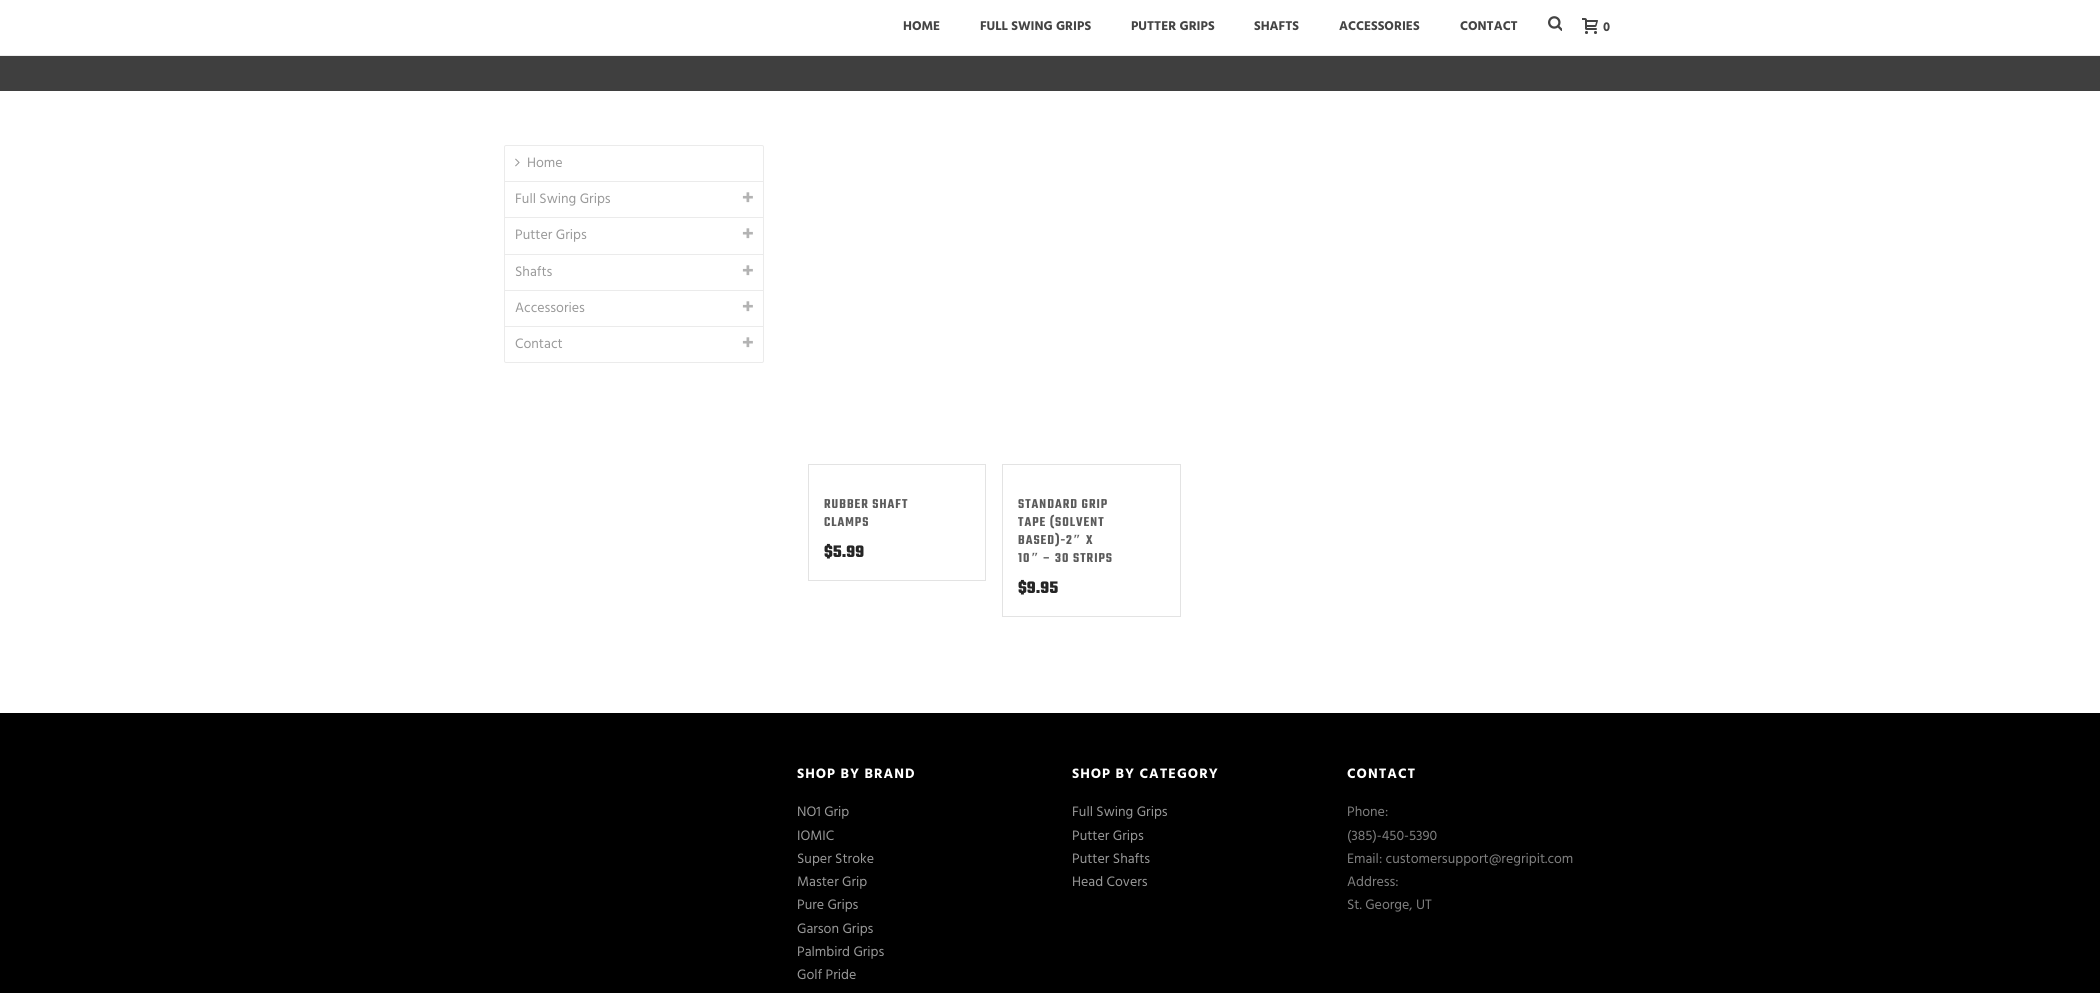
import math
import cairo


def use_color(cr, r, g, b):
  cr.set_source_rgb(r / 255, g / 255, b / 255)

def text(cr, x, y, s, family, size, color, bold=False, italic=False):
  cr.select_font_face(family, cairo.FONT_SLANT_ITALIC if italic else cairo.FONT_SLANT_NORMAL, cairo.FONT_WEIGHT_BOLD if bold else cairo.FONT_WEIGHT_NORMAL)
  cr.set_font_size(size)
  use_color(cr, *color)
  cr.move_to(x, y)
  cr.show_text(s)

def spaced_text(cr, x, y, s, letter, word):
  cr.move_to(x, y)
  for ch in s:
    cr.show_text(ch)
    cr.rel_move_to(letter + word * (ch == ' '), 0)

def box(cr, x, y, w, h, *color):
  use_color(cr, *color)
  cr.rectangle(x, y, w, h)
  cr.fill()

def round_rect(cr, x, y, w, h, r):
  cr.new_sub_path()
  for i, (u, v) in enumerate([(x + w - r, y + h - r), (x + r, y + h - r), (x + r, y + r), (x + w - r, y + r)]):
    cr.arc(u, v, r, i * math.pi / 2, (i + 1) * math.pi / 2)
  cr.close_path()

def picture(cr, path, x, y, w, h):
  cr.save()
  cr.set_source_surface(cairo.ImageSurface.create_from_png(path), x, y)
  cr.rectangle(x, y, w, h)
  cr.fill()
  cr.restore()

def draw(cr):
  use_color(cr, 255, 255, 255)
  cr.paint()
  box(cr, 0, 56, 2100, 35, 63, 63, 63)
  box(cr, 0, 55, 2100, 1, 237, 237, 237)
  picture(cr, "img_01.png", 1548, 16, 14, 15)
  picture(cr, "img_02.png", 1582, 18, 16, 16)
  round_rect(cr, 504.5, 145.5, 259, 217, 1.5)
  use_color(cr, 235, 235, 235)
  cr.set_line_width(1)
  cr.stroke()
  box(cr, 505, 181, 258, 1, 235, 235, 235)
  picture(cr, "img_03.png", 515, 158, 5, 9)
  box(cr, 505, 217, 258, 1, 235, 235, 235)
  box(cr, 505, 254, 258, 1, 235, 235, 235)
  box(cr, 505, 290, 258, 1, 235, 235, 235)
  box(cr, 505, 326, 258, 1, 235, 235, 235)
  cr.rectangle(808.5, 464.5, 177, 116)
  use_color(cr, 227, 227, 227)
  cr.stroke()
  cr.rectangle(1002.5, 464.5, 178, 152)
  cr.stroke()
  box(cr, 0, 713, 2100, 280, 0, 0, 0)
  text(cr, 903, 30, "HOME", "Hind", 13, (68, 68, 68), bold=True)
  text(cr, 980, 30, "FULL SWING GRIPS", "Hind", 13, (68, 68, 68), bold=True)
  text(cr, 1131, 30, "PUTTER GRIPS", "Hind", 13, (68, 68, 68), bold=True)
  text(cr, 1254, 30, "SHAFTS", "Hind", 13, (68, 68, 68), bold=True)
  text(cr, 1339, 30, "ACCESSORIES", "Hind", 13, (68, 68, 68), bold=True)
  text(cr, 1460, 30, "CONTACT", "Hind", 13, (68, 68, 68), bold=True)
  text(cr, 1603, 31, "0", "Hind", 13, (68, 68, 68), bold=True)
  text(cr, 527, 167, "Home", "Hind", 14, (153, 153, 153))
  text(cr, 515, 203, "Full Swing Grips", "Hind", 14, (153, 153, 153))
  text(cr, 742, 204, "+", "Hind", 20, (179, 179, 179), bold=True)
  text(cr, 515, 239, "Putter Grips", "Hind", 14, (153, 153, 153))
  text(cr, 742, 240, "+", "Hind", 20, (179, 179, 179), bold=True)
  text(cr, 515, 276, "Shafts", "Hind", 14, (153, 153, 153))
  text(cr, 742, 277, "+", "Hind", 20, (179, 179, 179), bold=True)
  text(cr, 515, 312, "Accessories", "Hind", 14, (153, 153, 153))
  text(cr, 742, 313, "+", "Hind", 20, (179, 179, 179), bold=True)
  text(cr, 515, 348, "Contact", "Hind", 14, (153, 153, 153))
  text(cr, 742, 349, "+", "Hind", 20, (179, 179, 179), bold=True)
  cr.select_font_face("Teko SemiBold")
  cr.set_font_size(14)
  use_color(cr, 91, 91, 91)
  spaced_text(cr, 824, 508, "RUBBER SHAFT", 1, 0)
  spaced_text(cr, 824, 526, "CLAMPS", 1, 0)
  text(cr, 824, 557, "$5.99", "Teko", 18, (37, 37, 37), bold=True)
  cr.select_font_face("Teko SemiBold")
  cr.set_font_size(14)
  use_color(cr, 91, 91, 91)
  spaced_text(cr, 1018, 508, "STANDARD GRIP", 1, 0)
  spaced_text(cr, 1018, 526, "TAPE (SOLVENT", 1, 0)
  spaced_text(cr, 1018, 544, "BASED)-2", 1, 0)
  cr.select_font_face("Liberation Serif", cairo.FONT_SLANT_NORMAL, cairo.FONT_WEIGHT_BOLD)
  spaced_text(cr, 1073, 544, "″", 1, 0)
  cr.select_font_face("Teko SemiBold")
  spaced_text(cr, 1086, 544, "X", 1, 0)
  spaced_text(cr, 1018, 562, "10", 1, 0)
  cr.select_font_face("Liberation Serif", cairo.FONT_SLANT_NORMAL, cairo.FONT_WEIGHT_BOLD)
  spaced_text(cr, 1031, 562, "″", 1, 0)
  cr.select_font_face("Teko SemiBold")
  spaced_text(cr, 1043, 562, "– 30 STRIPS", 1, 0)
  text(cr, 1018, 593, "$9.95", "Teko", 18, (37, 37, 37), bold=True)
  cr.select_font_face("Hind", cairo.FONT_SLANT_NORMAL, cairo.FONT_WEIGHT_BOLD)
  cr.set_font_size(14)
  use_color(cr, 255, 255, 255)
  spaced_text(cr, 797, 778, "SHOP BY BRAND", 1, 0)
  text(cr, 797, 816, "NO1 Grip", "Hind", 14, (153, 153, 153))
  text(cr, 797, 840, "IOMIC", "Hind", 14, (153, 153, 153))
  text(cr, 797, 863, "Super Stroke", "Hind", 14, (153, 153, 153))
  text(cr, 797, 886, "Master Grip", "Hind", 14, (153, 153, 153))
  text(cr, 797, 909, "Pure Grips", "Hind", 14, (153, 153, 153))
  text(cr, 797, 933, "Garson Grips", "Hind", 14, (153, 153, 153))
  text(cr, 797, 956, "Palmbird Grips", "Hind", 14, (153, 153, 153))
  text(cr, 797, 979, "Golf Pride", "Hind", 14, (153, 153, 153))
  cr.select_font_face("Hind", cairo.FONT_SLANT_NORMAL, cairo.FONT_WEIGHT_BOLD)
  use_color(cr, 255, 255, 255)
  spaced_text(cr, 1072, 778, "SHOP BY CATEGORY", 1, 0)
  text(cr, 1072, 816, "Full Swing Grips", "Hind", 14, (153, 153, 153))
  text(cr, 1072, 840, "Putter Grips", "Hind", 14, (153, 153, 153))
  text(cr, 1072, 863, "Putter Shafts", "Hind", 14, (153, 153, 153))
  text(cr, 1072, 886, "Head Covers", "Hind", 14, (153, 153, 153))
  cr.select_font_face("Hind", cairo.FONT_SLANT_NORMAL, cairo.FONT_WEIGHT_BOLD)
  use_color(cr, 255, 255, 255)
  spaced_text(cr, 1347, 778, "CONTACT", 1, 0)
  text(cr, 1347, 816, "Phone:", "Hind", 14, (128, 128, 128))
  text(cr, 1347, 840, "(385)-450-5390", "Hind", 14, (128, 128, 128))
  text(cr, 1347, 863, "Email: customersupport@regripit.com", "Hind", 14, (128, 128, 128))
  text(cr, 1347, 886, "Address:", "Hind", 14, (128, 128, 128))
  text(cr, 1347, 909, "St. George, UT", "Hind", 14, (128, 128, 128))


surface = cairo.ImageSurface(cairo.FORMAT_RGB24, 2100, 993)
cr = cairo.Context(surface)
options = cairo.FontOptions()
options.set_hint_metrics(cairo.HINT_METRICS_OFF)
options.set_hint_style(cairo.HINT_STYLE_NONE)
cr.set_font_options(options)
cr.set_miter_limit(4)
draw(cr)
surface.write_to_png("out.png")
